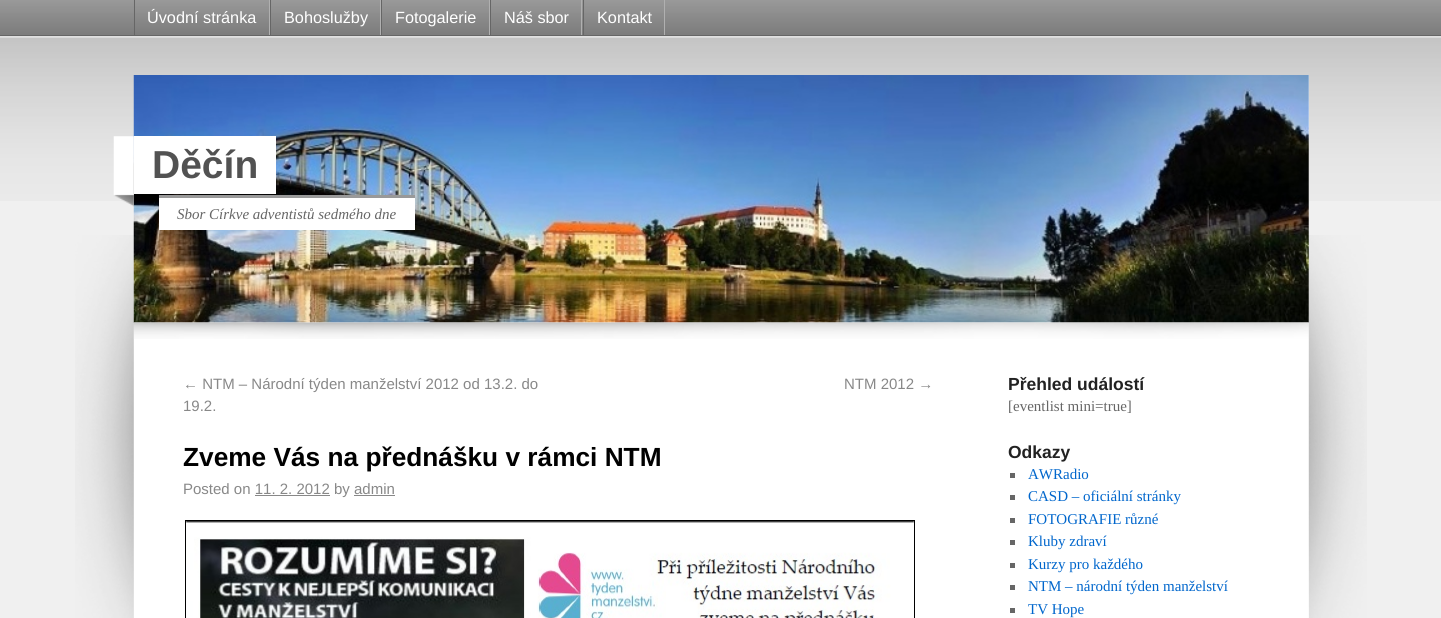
import math
import cairo


def use_color(cr, r, g, b):
  cr.set_source_rgb(r / 255, g / 255, b / 255)

def text(cr, x, y, s, family, size, color, bold=False, italic=False):
  cr.select_font_face(family, cairo.FONT_SLANT_ITALIC if italic else cairo.FONT_SLANT_NORMAL, cairo.FONT_WEIGHT_BOLD if bold else cairo.FONT_WEIGHT_NORMAL)
  cr.set_font_size(size)
  use_color(cr, *color)
  cr.move_to(x, y)
  cr.show_text(s)

def box(cr, x, y, w, h, *color):
  use_color(cr, *color)
  cr.rectangle(x, y, w, h)
  cr.fill()

def picture(cr, path, x, y, w, h):
  cr.save()
  cr.set_source_surface(cairo.ImageSurface.create_from_png(path), x, y)
  cr.rectangle(x, y, w, h)
  cr.fill()
  cr.restore()

def draw(cr):
  use_color(cr, 240, 240, 240)
  cr.paint()
  picture(cr, "img_01.png", 0, 0, 1441, 35)
  box(cr, 0, 35, 1441, 1, 102, 102, 102)
  box(cr, 269, 0, 1, 35, 176, 176, 176)
  box(cr, 134, 0, 1, 35, 102, 102, 102)
  box(cr, 380, 0, 1, 35, 176, 176, 176)
  box(cr, 270, 0, 1, 35, 102, 102, 102)
  box(cr, 489, 0, 1, 35, 176, 176, 176)
  box(cr, 381, 0, 1, 35, 102, 102, 102)
  box(cr, 581, 0, 1, 35, 176, 176, 176)
  box(cr, 490, 0, 1, 35, 102, 102, 102)
  box(cr, 664, 0, 1, 35, 176, 176, 176)
  box(cr, 583, 0, 1, 35, 102, 102, 102)
  picture(cr, "img_02.png", 0, 37, 1441, 164)
  box(cr, 0, 36, 1441, 1, 224, 224, 224)
  box(cr, 134, 75, 1175, 543, 255, 255, 255)
  picture(cr, "img_04.png", 133, 75, 1176, 248)
  picture(cr, "img_03.png", 113, 136, 21, 71)
  box(cr, 134, 136, 142, 58, 255, 255, 255)
  box(cr, 159, 198, 256, 32, 255, 255, 255)
  box(cr, 159, 195, 256, 3, 153, 153, 153)
  picture(cr, "img_05.png", 133, 322, 1176, 17)
  picture(cr, "img_06.png", 75, 235, 59, 383)
  box(cr, 255, 495, 75, 1, 136, 136, 136)
  box(cr, 354, 495, 41, 1, 136, 136, 136)
  cr.rectangle(185.5, 520.5, 729, 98)
  use_color(cr, 0, 0, 0)
  cr.set_line_width(1)
  cr.stroke()
  picture(cr, "img_07.png", 186, 521, 728, 97)
  box(cr, 1010, 473, 5, 5, 102, 102, 102)
  box(cr, 1010, 495, 5, 5, 102, 102, 102)
  box(cr, 1010, 518, 5, 5, 102, 102, 102)
  box(cr, 1010, 540, 5, 5, 102, 102, 102)
  box(cr, 1010, 563, 5, 5, 102, 102, 102)
  box(cr, 1010, 585, 5, 5, 102, 102, 102)
  box(cr, 1010, 608, 5, 5, 102, 102, 102)
  picture(cr, "img_08.png", 1308, 235, 59, 383)
  text(cr, 147, 23, "Úvodní stránka", "Liberation Sans", 16.25, (255, 255, 255))
  text(cr, 284, 23, "Bohoslužby", "Liberation Sans", 16.25, (255, 255, 255))
  text(cr, 395, 23, "Fotogalerie", "Liberation Sans", 16.25, (255, 255, 255))
  text(cr, 504, 23, "Náš sbor", "Liberation Sans", 16.25, (255, 255, 255))
  text(cr, 597, 23, "Kontakt", "Liberation Sans", 16.25, (255, 255, 255))
  text(cr, 152, 178, "Děčín", "Liberation Sans", 39, (82, 82, 82), bold=True)
  text(cr, 177, 219, "Sbor Církve adventistů sedmého dne", "Liberation Serif", 15, (102, 102, 102), italic=True)
  text(cr, 183, 389, "← NTM – Národní týden manželství 2012 od 13.2. do", "Liberation Sans", 15, (136, 136, 136))
  text(cr, 183, 411, "19.2.", "Liberation Sans", 15, (136, 136, 136))
  text(cr, 844, 389, "NTM 2012 →", "Liberation Sans", 15, (136, 136, 136))
  text(cr, 183, 466, "Zveme Vás na přednášku v rámci NTM", "Liberation Sans", 26.25, (0, 0, 0), bold=True)
  text(cr, 183, 494, "Posted on 11. 2. 2012 by admin", "Liberation Sans", 15, (136, 136, 136))
  text(cr, 1008, 390, "Přehled událostí", "Liberation Sans", 17.5, (34, 34, 34), bold=True)
  text(cr, 1008, 411, "[eventlist mini=true]", "Liberation Serif", 15, (102, 102, 102))
  text(cr, 1008, 458, "Odkazy", "Liberation Sans", 17.5, (34, 34, 34), bold=True)
  text(cr, 1028, 479, "AWRadio", "Liberation Serif", 15, (0, 102, 204))
  text(cr, 1028, 501, "CASD – oficiální stránky", "Liberation Serif", 15, (0, 102, 204))
  text(cr, 1028, 524, "FOTOGRAFIE různé", "Liberation Serif", 15, (0, 102, 204))
  text(cr, 1028, 546, "Kluby zdraví", "Liberation Serif", 15, (0, 102, 204))
  text(cr, 1028, 569, "Kurzy pro každého", "Liberation Serif", 15, (0, 102, 204))
  text(cr, 1028, 591, "NTM – národní týden manželství", "Liberation Serif", 15, (0, 102, 204))
  text(cr, 1028, 614, "TV Hope", "Liberation Serif", 15, (0, 102, 204))


surface = cairo.ImageSurface(cairo.FORMAT_RGB24, 1441, 618)
cr = cairo.Context(surface)
options = cairo.FontOptions()
options.set_hint_metrics(cairo.HINT_METRICS_OFF)
options.set_hint_style(cairo.HINT_STYLE_NONE)
cr.set_font_options(options)
cr.set_miter_limit(4)
draw(cr)
surface.write_to_png("out.png")
